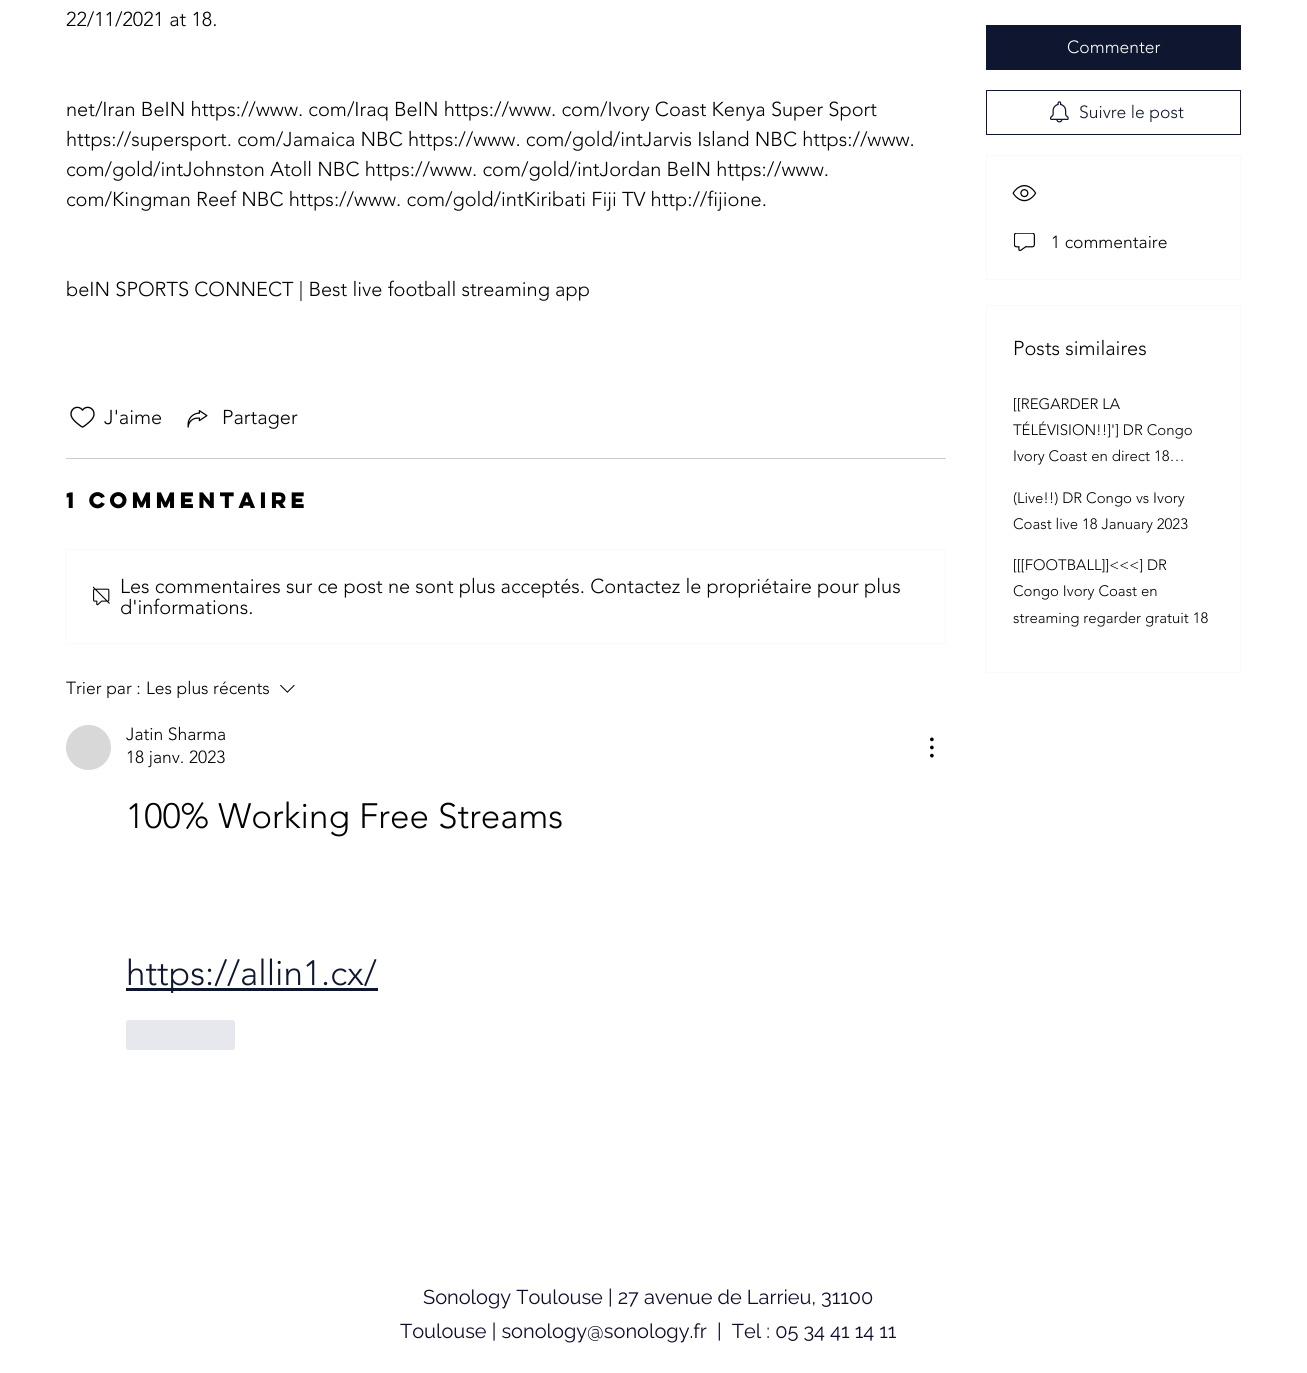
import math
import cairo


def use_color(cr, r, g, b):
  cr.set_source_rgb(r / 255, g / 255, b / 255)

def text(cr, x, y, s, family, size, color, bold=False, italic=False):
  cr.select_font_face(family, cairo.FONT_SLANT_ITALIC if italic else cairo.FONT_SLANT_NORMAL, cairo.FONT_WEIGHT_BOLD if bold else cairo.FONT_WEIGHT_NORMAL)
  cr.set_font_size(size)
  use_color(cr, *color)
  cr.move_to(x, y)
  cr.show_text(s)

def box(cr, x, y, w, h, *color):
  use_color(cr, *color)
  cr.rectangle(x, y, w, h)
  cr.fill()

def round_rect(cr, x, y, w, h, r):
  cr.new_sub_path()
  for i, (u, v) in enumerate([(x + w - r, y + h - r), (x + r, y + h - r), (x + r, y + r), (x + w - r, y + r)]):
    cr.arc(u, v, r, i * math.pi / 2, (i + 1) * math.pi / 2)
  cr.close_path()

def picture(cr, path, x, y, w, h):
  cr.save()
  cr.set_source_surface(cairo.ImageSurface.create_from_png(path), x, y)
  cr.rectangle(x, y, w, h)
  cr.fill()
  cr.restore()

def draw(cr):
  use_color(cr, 255, 255, 255)
  cr.paint()
  picture(cr, "img_01.png", 70, 406, 25, 22)
  picture(cr, "img_02.png", 187, 410, 21, 18)
  box(cr, 66, 458, 880, 1, 204, 204, 204)
  cr.rectangle(66.5, 549.5, 879, 94)
  use_color(cr, 250, 250, 250)
  cr.set_line_width(1)
  cr.stroke()
  picture(cr, "img_03.png", 93, 586, 17, 20)
  picture(cr, "img_04.png", 280, 684, 15, 9)
  use_color(cr, 216, 216, 216)
  cr.arc(88.5, 747.5, 22.5, 0, 2 * math.pi)
  cr.fill()
  picture(cr, "img_05.png", 930, 737, 4, 21)
  box(cr, 126, 988, 252, 3, 15, 22, 47)
  use_color(cr, 231, 232, 237)
  round_rect(cr, 126, 1020, 109, 30, 2.5)
  cr.fill()
  box(cr, 986, 25, 255, 45, 15, 22, 47)
  cr.rectangle(986.5, 90.5, 254, 44)
  cr.stroke()
  picture(cr, "img_06.png", 1050, 101, 19, 22)
  cr.rectangle(986.5, 155.5, 254, 124)
  use_color(cr, 250, 250, 250)
  cr.stroke()
  picture(cr, "img_07.png", 1012, 185, 25, 17)
  picture(cr, "img_08.png", 1014, 233, 21, 18)
  cr.rectangle(986.5, 305.5, 254, 367)
  cr.stroke()
  text(cr, 66, 26, "22/11/2021 at 18.", "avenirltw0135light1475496 Light", 20, (0, 0, 0))
  text(cr, 66, 116, "net/Iran BeIN https://www. com/Iraq BeIN https://www. com/Ivory Coast Kenya Super Sport", "avenirltw0135light1475496 Light", 20, (0, 0, 0))
  text(cr, 66, 146, "https://supersport. com/Jamaica NBC https://www. com/gold/intJarvis Island NBC https://www.", "avenirltw0135light1475496 Light", 20, (0, 0, 0))
  text(cr, 66, 176, "com/gold/intJohnston Atoll NBC https://www. com/gold/intJordan BeIN https://www.", "avenirltw0135light1475496 Light", 20, (0, 0, 0))
  text(cr, 66, 206, "com/Kingman Reef NBC https://www. com/gold/intKiribati Fiji TV http://fijione.", "avenirltw0135light1475496 Light", 20, (0, 0, 0))
  text(cr, 66, 296, "beIN SPORTS CONNECT | Best live football streaming app", "avenirltw0135light1475496 Light", 20, (0, 0, 0))
  text(cr, 104, 424, "J'aime", "avenirltw0135light1475496 Light", 20, (0, 0, 0))
  text(cr, 222, 424, "Partager", "avenirltw0135light1475496 Light", 20, (0, 0, 0))
  text(cr, 66, 508, "1 commentaire", "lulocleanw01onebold", 20, (0, 0, 0), bold=True)
  text(cr, 120, 593, "Les commentaires sur ce post ne sont plus acceptés. Contactez le propriétaire pour plus", "avenirltw0135light1475496 Light", 20, (0, 0, 0))
  text(cr, 120, 614, "d'informations.", "avenirltw0135light1475496 Light", 20, (0, 0, 0))
  text(cr, 66, 694, "Trier par :", "avenirltw0135light1475496 Light", 17.5, (0, 0, 0))
  text(cr, 146, 694, "Les plus récents", "avenirltw0135light1475496 Light", 17.5, (0, 0, 0))
  text(cr, 126, 740, "Jatin Sharma", "avenirltw0135light1475496 Light", 17.5, (0, 0, 0))
  text(cr, 126, 763, "18 janv. 2023", "avenirltw0135light1475496 Light", 17.5, (0, 0, 0))
  text(cr, 126, 828, "100% Working Free Streams", "avenirltw0135light1475496 Light", 35, (0, 0, 0))
  text(cr, 126, 985, "https://allin1.cx/", "avenirltw0135light1475496 Light", 35, (15, 22, 47))
  text(cr, 1067, 53, "Commenter", "avenirltw0135light1475496 Light", 17.5, (255, 255, 255))
  text(cr, 1079, 118, "Suivre le post", "avenirltw0135light1475496 Light", 17.5, (15, 22, 47))
  text(cr, 1051, 248, "1 commentaire", "avenirltw0135light1475496 Light", 17.5, (0, 0, 0))
  text(cr, 1013, 355, "Posts similaires", "avenirltw0135light1475496 Light", 20, (0, 0, 0))
  text(cr, 1013, 409, "[[REGARDER LA", "avenirltw0135light1475496 Light", 15, (0, 0, 0))
  text(cr, 1013, 435, "TÉLÉVISION!!]'] DR Congo", "avenirltw0135light1475496 Light", 15, (0, 0, 0))
  text(cr, 1013, 461, "Ivory Coast en direct 18…", "avenirltw0135light1475496 Light", 15, (0, 0, 0))
  text(cr, 1013, 503, "(Live!!) DR Congo vs Ivory", "avenirltw0135light1475496 Light", 15, (0, 0, 0))
  text(cr, 1013, 529, "Coast live 18 January 2023", "avenirltw0135light1475496 Light", 15, (0, 0, 0))
  text(cr, 1013, 570, "[[[FOOTBALL]]<<<] DR", "avenirltw0135light1475496 Light", 15, (0, 0, 0))
  text(cr, 1013, 596, "Congo Ivory Coast en", "avenirltw0135light1475496 Light", 15, (0, 0, 0))
  text(cr, 1013, 623, "streaming regarder gratuit 18", "avenirltw0135light1475496 Light", 15, (0, 0, 0))
  text(cr, 423, 1304, "Sonology Toulouse | 27 avenue de Larrieu, 31100", "Raleway", 20, (17, 10, 43))
  text(cr, 400, 1338, "Toulouse | sonology@sonology.fr", "Raleway", 20, (17, 10, 43))
  text(cr, 717, 1338, "|  Tel : 05 34 41 14 11", "Raleway", 20, (17, 10, 43))


surface = cairo.ImageSurface(cairo.FORMAT_RGB24, 1307, 1373)
cr = cairo.Context(surface)
options = cairo.FontOptions()
options.set_hint_metrics(cairo.HINT_METRICS_OFF)
options.set_hint_style(cairo.HINT_STYLE_NONE)
cr.set_font_options(options)
cr.set_miter_limit(4)
draw(cr)
surface.write_to_png("out.png")
